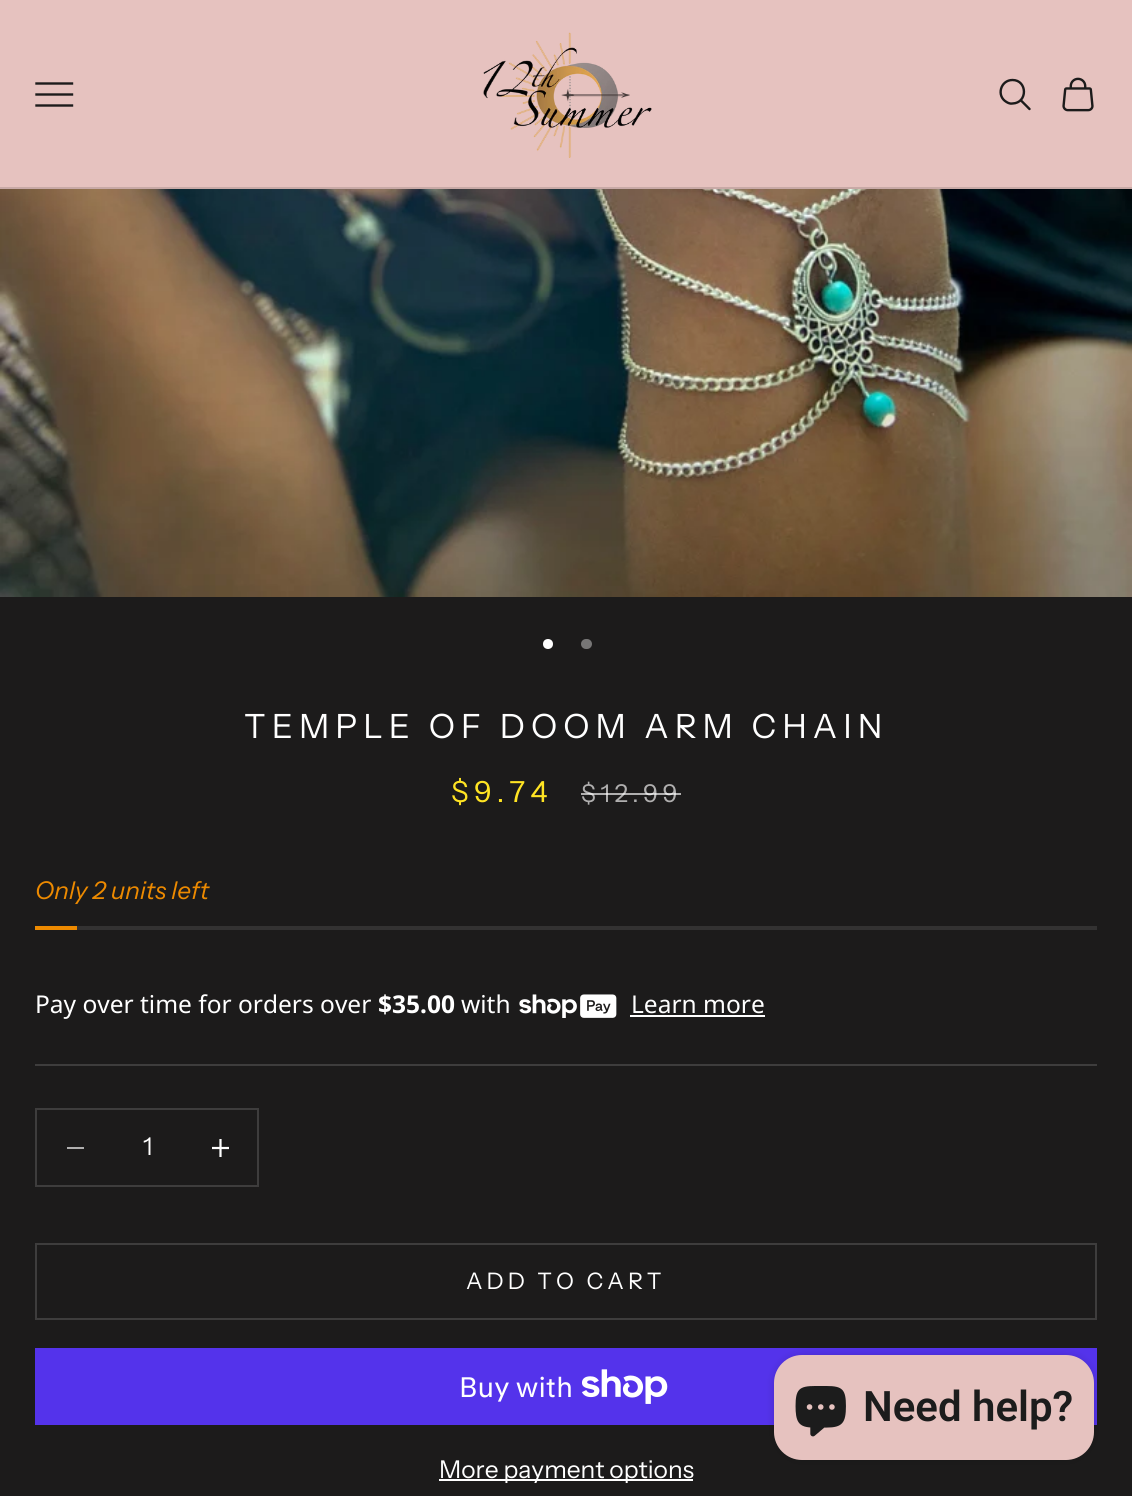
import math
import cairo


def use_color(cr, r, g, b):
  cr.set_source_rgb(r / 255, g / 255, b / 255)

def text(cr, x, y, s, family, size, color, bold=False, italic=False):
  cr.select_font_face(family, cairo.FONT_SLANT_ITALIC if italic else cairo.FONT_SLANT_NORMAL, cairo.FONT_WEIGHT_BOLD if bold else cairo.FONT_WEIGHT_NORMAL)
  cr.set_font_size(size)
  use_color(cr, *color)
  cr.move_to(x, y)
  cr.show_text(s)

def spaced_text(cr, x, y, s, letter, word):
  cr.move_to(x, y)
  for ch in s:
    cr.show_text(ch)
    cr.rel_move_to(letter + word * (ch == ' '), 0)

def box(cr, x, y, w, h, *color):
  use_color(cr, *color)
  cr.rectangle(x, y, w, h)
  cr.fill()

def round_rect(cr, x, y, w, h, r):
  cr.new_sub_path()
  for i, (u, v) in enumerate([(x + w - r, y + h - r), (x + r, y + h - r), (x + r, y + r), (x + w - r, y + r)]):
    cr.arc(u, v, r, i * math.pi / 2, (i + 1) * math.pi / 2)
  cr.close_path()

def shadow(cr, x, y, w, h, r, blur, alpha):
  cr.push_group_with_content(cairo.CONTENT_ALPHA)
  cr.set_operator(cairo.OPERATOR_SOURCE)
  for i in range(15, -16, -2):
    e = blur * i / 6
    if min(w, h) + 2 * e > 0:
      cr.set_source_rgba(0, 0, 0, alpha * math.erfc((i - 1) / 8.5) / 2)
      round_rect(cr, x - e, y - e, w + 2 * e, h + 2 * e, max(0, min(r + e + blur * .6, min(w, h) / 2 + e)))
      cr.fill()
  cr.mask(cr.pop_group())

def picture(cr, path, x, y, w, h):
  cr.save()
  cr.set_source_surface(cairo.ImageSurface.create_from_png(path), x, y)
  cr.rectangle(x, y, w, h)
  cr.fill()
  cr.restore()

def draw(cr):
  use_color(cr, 28, 27, 27)
  cr.paint()
  box(cr, 0, 0, 1132, 187, 230, 194, 191)
  box(cr, 0, 187, 1132, 2, 200, 169, 166)
  cr.new_path()
  cr.move_to(36.5, 105.5)
  cr.line_to(72, 105.5)
  cr.move_to(36.5, 94.5)
  cr.line_to(72, 94.5)
  cr.move_to(36.5, 83.5)
  cr.line_to(72, 83.5)
  use_color(cr, 28, 27, 27)
  cr.set_line_width(2.4)
  cr.set_line_cap(cairo.LINE_CAP_SQUARE)
  cr.stroke()
  picture(cr, "img_01.png", 483, 32, 169, 126)
  cr.new_path()
  cr.move_to(1012.5, 80)
  cr.curve_to(1000.5, 80, 996, 96, 1006.5, 102)
  cr.curve_to(1008, 103, 1010.5, 104, 1012.5, 103.5)
  cr.curve_to(1028, 103, 1027.5, 80, 1012.5, 80)
  cr.close_path()
  cr.set_line_cap(cairo.LINE_CAP_BUTT)
  cr.stroke()
  cr.new_path()
  cr.move_to(1021, 100.5)
  cr.line_to(1029.5, 109)
  cr.set_line_cap(cairo.LINE_CAP_ROUND)
  cr.stroke()
  picture(cr, "img_02.png", 1062, 77, 32, 35)
  picture(cr, "img_03.png", 0, 189, 1132, 408)
  use_color(cr, 255, 255, 255)
  cr.arc(548, 644, 5, 0, 2 * math.pi)
  cr.fill()
  use_color(cr, 119, 118, 118)
  round_rect(cr, 581, 639, 11, 10, 5)
  cr.fill()
  box(cr, 77, 926, 1020, 4, 51, 50, 50)
  box(cr, 35, 926, 42, 4, 237, 138, 0)
  picture(cr, "img_04.png", 519, 994, 98, 24)
  box(cr, 630, 1015, 135, 2, 255, 255, 255)
  box(cr, 35, 1064, 1062, 2, 62, 61, 61)
  cr.rectangle(36, 1109, 222, 77)
  cr.set_line_width(2)
  cr.set_line_cap(cairo.LINE_CAP_BUTT)
  cr.stroke()
  box(cr, 67, 1147, 17, 2, 176, 175, 175)
  cr.new_path()
  cr.move_to(220.5, 1139)
  cr.line_to(220.5, 1157)
  cr.move_to(212, 1148)
  cr.line_to(229, 1148)
  use_color(cr, 255, 255, 255)
  cr.set_line_width(2.2)
  cr.stroke()
  cr.rectangle(36, 1244, 1060, 75)
  use_color(cr, 62, 61, 61)
  cr.set_line_width(2)
  cr.stroke()
  box(cr, 35, 1348, 1062, 77, 84, 51, 235)
  picture(cr, "img_05.png", 582, 1369, 86, 35)
  box(cr, 439, 1479, 254, 2, 255, 255, 255)
  use_color(cr, 0, 0, 0)
  shadow(cr, 774, 1355, 320, 105, 28, 4.5, 0.15)
  use_color(cr, 230, 194, 191)
  round_rect(cr, 774, 1355, 320, 105, 28)
  cr.fill()
  picture(cr, "img_06.png", 795, 1386, 51, 51)
  cr.select_font_face("Instrument Sans")
  cr.set_font_size(33.4)
  use_color(cr, 255, 255, 255)
  spaced_text(cr, 244, 738, "TEMPLE OF DOOM ARM CHAIN", 6, 0)
  cr.set_font_size(29)
  use_color(cr, 255, 228, 35)
  spaced_text(cr, 451, 802, "$9.74", 5.25, 0)
  cr.set_font_size(24.5)
  use_color(cr, 176, 175, 175)
  spaced_text(cr, 581, 802, "$12.99", 4.5, 0)
  cr.set_source_rgba(1, 1, 1, 0.65)
  cr.rectangle(581, 793, 100, 2)
  cr.fill()
  text(cr, 35, 899, "Only 2 units left", "Instrument Sans", 24.5, (237, 138, 0), italic=True)
  text(cr, 35, 1013, "Pay over time for orders over", "Noto Sans", 24.5, (255, 255, 255))
  text(cr, 378, 1013, "$35.00", "Noto Sans", 24.5, (255, 255, 255), bold=True)
  text(cr, 461, 1013, "with", "Noto Sans", 24.5, (255, 255, 255))
  text(cr, 631, 1013, "Learn more", "Noto Sans", 24.5, (255, 255, 255))
  text(cr, 143, 1155, "1", "Instrument Sans", 24.5, (255, 255, 255))
  cr.set_font_size(22.75)
  spaced_text(cr, 466, 1289, "ADD TO CART", 4, 0)
  text(cr, 459, 1397, "Buy with", "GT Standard", 28, (255, 255, 255))
  text(cr, 439, 1478, "More payment options", "Instrument Sans", 24.5, (255, 255, 255))
  text(cr, 863, 1421, "Need help?", "Roboto SemiBold", 42, (28, 28, 28))


surface = cairo.ImageSurface(cairo.FORMAT_RGB24, 1132, 1496)
cr = cairo.Context(surface)
options = cairo.FontOptions()
options.set_hint_metrics(cairo.HINT_METRICS_OFF)
options.set_hint_style(cairo.HINT_STYLE_NONE)
cr.set_font_options(options)
cr.set_miter_limit(4)
draw(cr)
surface.write_to_png("out.png")
